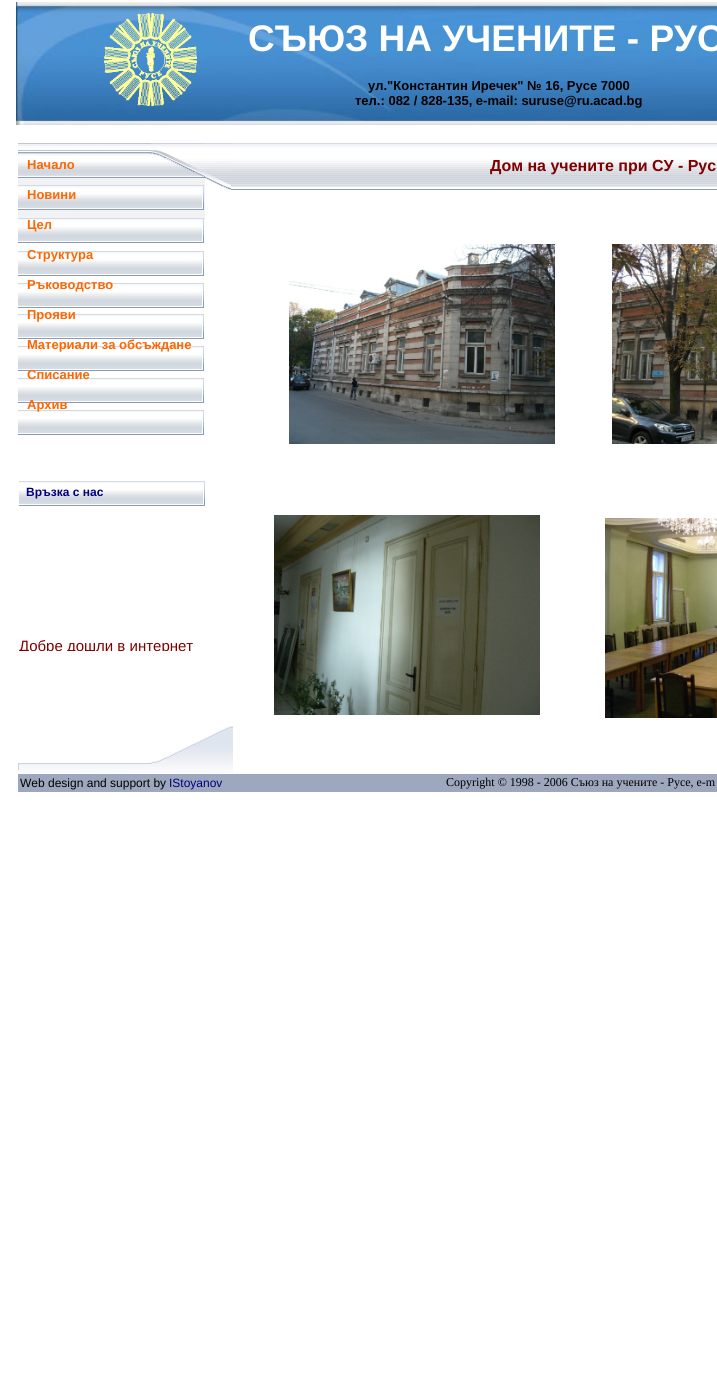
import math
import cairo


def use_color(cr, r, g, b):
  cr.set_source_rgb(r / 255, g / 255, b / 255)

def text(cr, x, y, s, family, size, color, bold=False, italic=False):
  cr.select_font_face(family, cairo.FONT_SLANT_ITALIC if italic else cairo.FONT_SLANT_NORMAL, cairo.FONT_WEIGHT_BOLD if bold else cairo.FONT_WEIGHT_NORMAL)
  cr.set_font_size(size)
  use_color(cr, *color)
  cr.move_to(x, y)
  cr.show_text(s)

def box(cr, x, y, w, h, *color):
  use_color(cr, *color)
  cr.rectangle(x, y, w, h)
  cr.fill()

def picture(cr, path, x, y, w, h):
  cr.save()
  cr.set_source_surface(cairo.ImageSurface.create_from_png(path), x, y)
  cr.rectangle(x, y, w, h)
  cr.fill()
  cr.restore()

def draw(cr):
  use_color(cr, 255, 255, 255)
  cr.paint()
  picture(cr, "img_01.png", 16, 2, 701, 123)
  picture(cr, "img_02.png", 104, 13, 93, 93)
  picture(cr, "img_03.png", 104, 13, 93, 93)
  picture(cr, "img_04.png", 18, 143, 187, 47)
  picture(cr, "img_05.png", 205, 143, 26, 47)
  picture(cr, "img_06.png", 231, 143, 486, 47)
  picture(cr, "img_08.png", 18, 190, 187, 37)
  picture(cr, "img_07.png", 18, 185, 186, 25)
  picture(cr, "img_07.png", 18, 218, 186, 25)
  picture(cr, "img_07.png", 18, 251, 186, 25)
  picture(cr, "img_09.png", 289, 244, 266, 200)
  picture(cr, "img_10.png", 612, 244, 105, 200)
  picture(cr, "img_07.png", 18, 283, 186, 25)
  picture(cr, "img_07.png", 18, 314, 186, 25)
  picture(cr, "img_07.png", 18, 346, 186, 25)
  picture(cr, "img_07.png", 18, 378, 186, 25)
  picture(cr, "img_07.png", 18, 410, 186, 25)
  picture(cr, "img_07.png", 19, 481, 186, 25)
  picture(cr, "img_11.png", 274, 515, 266, 200)
  picture(cr, "img_12.png", 605, 518, 112, 200)
  picture(cr, "img_13.png", 18, 738, 187, 35)
  picture(cr, "img_14.png", 205, 726, 28, 47)
  box(cr, 18, 774, 699, 18, 157, 167, 189)
  text(cr, 248, 51, "СЪЮЗ НА УЧЕНИТЕ - РУС", "Liberation Sans", 37, (255, 255, 255), bold=True)
  text(cr, 368, 90, "ул.\"Кoнстантин Иречек\" № 16, Русе 7000", "Liberation Sans", 13, (0, 0, 0), bold=True)
  text(cr, 355, 105, "тел.: 082 / 828-135, e-mail: suruse@ru.acad.bg", "Liberation Sans", 13, (0, 0, 0), bold=True)
  text(cr, 27, 169, "Начало", "Liberation Sans", 13, (255, 102, 0), bold=True)
  text(cr, 27, 199, "Новини", "Liberation Sans", 13, (255, 102, 0), bold=True)
  text(cr, 27, 229, "Цел", "Liberation Sans", 13, (255, 102, 0), bold=True)
  text(cr, 27, 259, "Структура", "Liberation Sans", 13, (255, 102, 0), bold=True)
  text(cr, 27, 289, "Ръководство", "Liberation Sans", 13, (255, 102, 0), bold=True)
  text(cr, 27, 319, "Прояви", "Liberation Sans", 13, (255, 102, 0), bold=True)
  text(cr, 27, 349, "Материали за обсъждане", "Liberation Sans", 13, (255, 102, 0), bold=True)
  text(cr, 27, 379, "Списание", "Liberation Sans", 13, (255, 102, 0), bold=True)
  text(cr, 27, 409, "Архив", "Liberation Sans", 13, (255, 102, 0), bold=True)
  text(cr, 490, 171, "Дом на учените при СУ - Рус", "Liberation Sans", 16, (128, 0, 0), bold=True)
  text(cr, 26, 496, "Връзка с нас", "Liberation Sans", 12, (0, 0, 128), bold=True)
  cr.save()
  cr.rectangle(19, 504, 187, 147)
  cr.clip()
  text(cr, 19, 651, "Добре дошли в интернет", "Liberation Sans", 15, (128, 0, 0))
  cr.restore()
  text(cr, 20, 787, "Web design and support by", "Liberation Sans", 12, (0, 0, 0))
  text(cr, 169, 787, "IStoyanov", "Liberation Sans", 12, (0, 0, 128))
  text(cr, 446, 786, "Copyright © 1998 - 2006 Съюз на учените - Русе, e-m", "Liberation Serif", 12, (0, 0, 0))


surface = cairo.ImageSurface(cairo.FORMAT_RGB24, 717, 1378)
cr = cairo.Context(surface)
options = cairo.FontOptions()
options.set_hint_metrics(cairo.HINT_METRICS_OFF)
options.set_hint_style(cairo.HINT_STYLE_NONE)
cr.set_font_options(options)
cr.set_miter_limit(4)
draw(cr)
surface.write_to_png("out.png")
